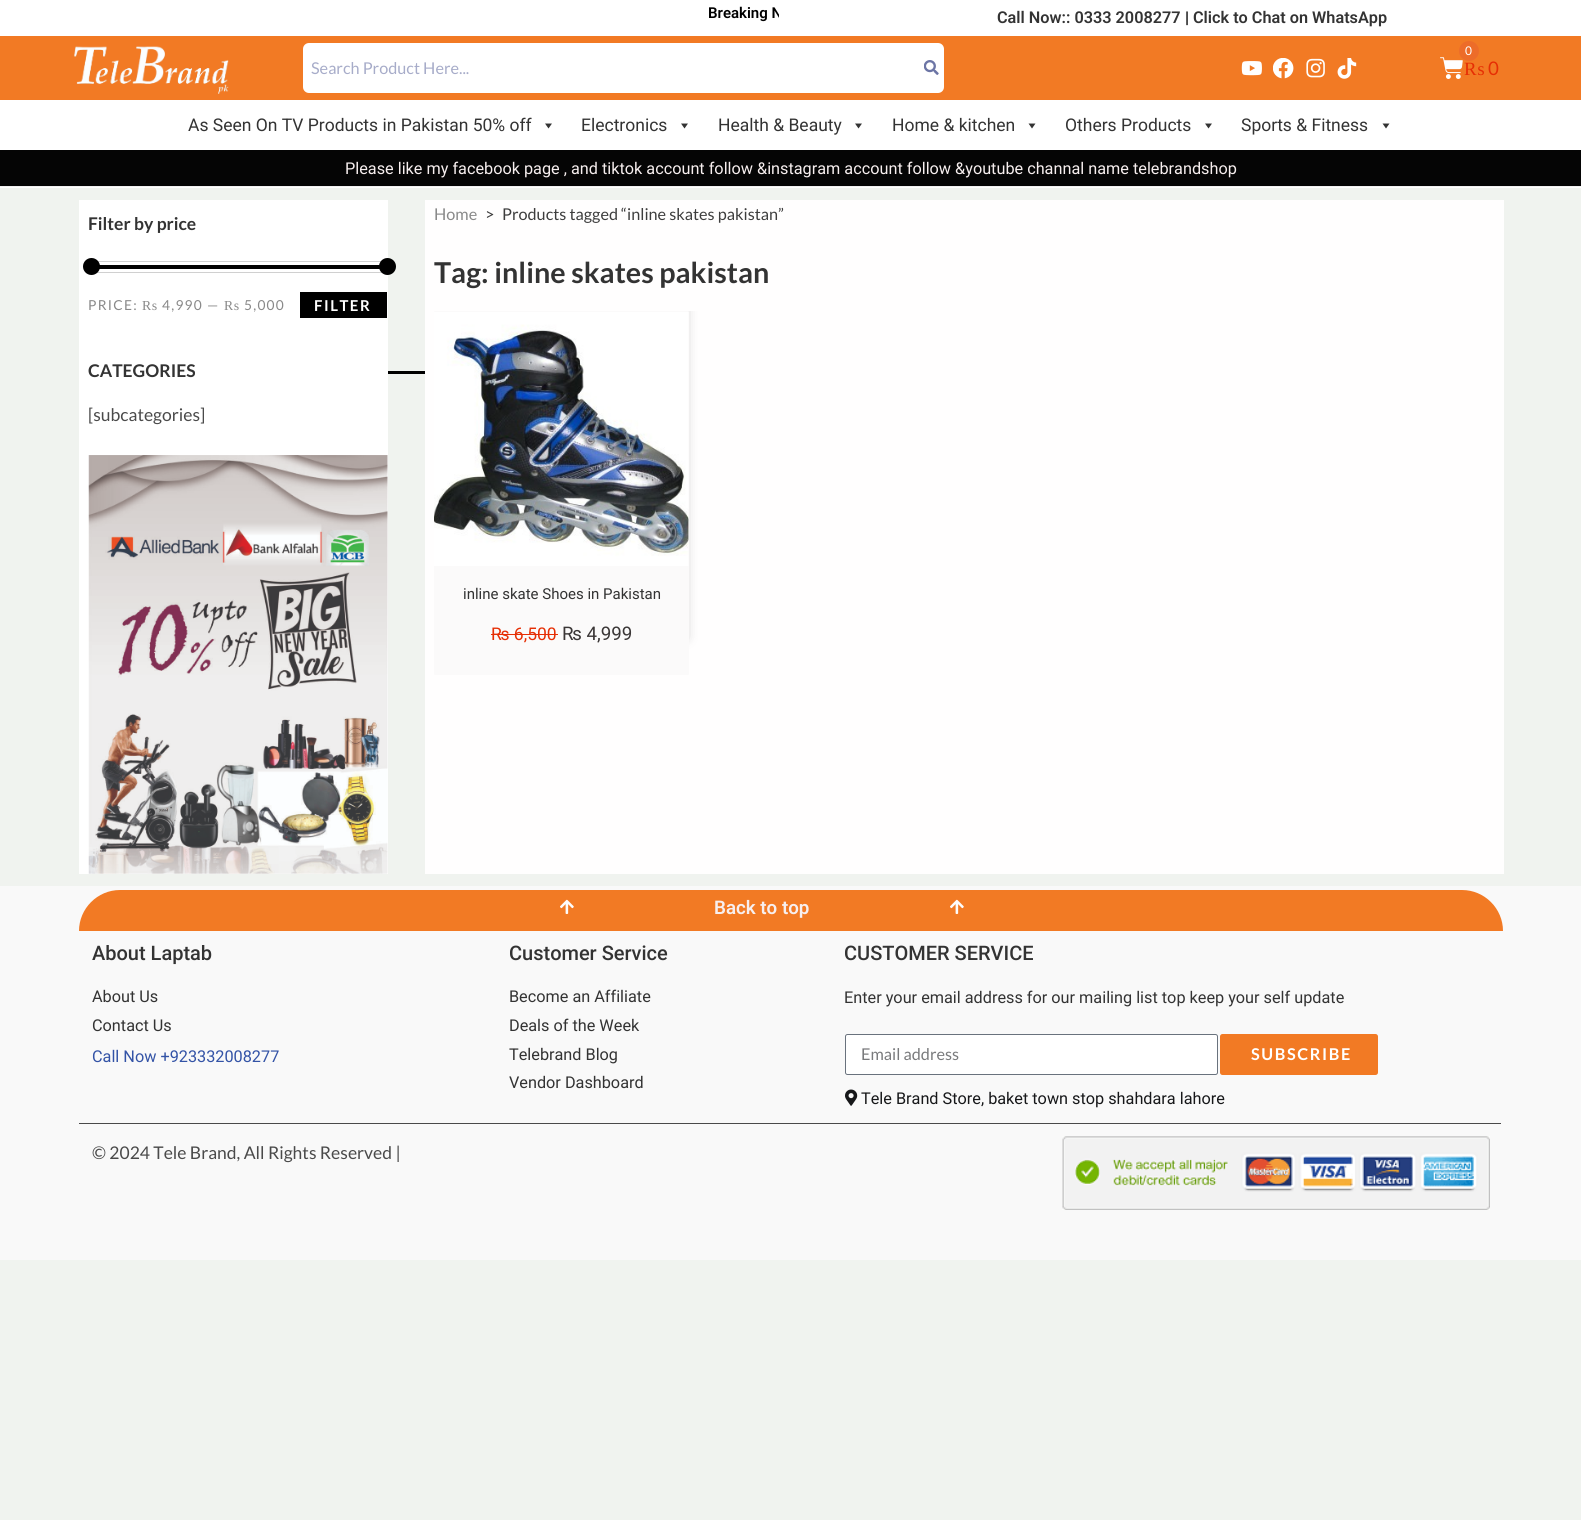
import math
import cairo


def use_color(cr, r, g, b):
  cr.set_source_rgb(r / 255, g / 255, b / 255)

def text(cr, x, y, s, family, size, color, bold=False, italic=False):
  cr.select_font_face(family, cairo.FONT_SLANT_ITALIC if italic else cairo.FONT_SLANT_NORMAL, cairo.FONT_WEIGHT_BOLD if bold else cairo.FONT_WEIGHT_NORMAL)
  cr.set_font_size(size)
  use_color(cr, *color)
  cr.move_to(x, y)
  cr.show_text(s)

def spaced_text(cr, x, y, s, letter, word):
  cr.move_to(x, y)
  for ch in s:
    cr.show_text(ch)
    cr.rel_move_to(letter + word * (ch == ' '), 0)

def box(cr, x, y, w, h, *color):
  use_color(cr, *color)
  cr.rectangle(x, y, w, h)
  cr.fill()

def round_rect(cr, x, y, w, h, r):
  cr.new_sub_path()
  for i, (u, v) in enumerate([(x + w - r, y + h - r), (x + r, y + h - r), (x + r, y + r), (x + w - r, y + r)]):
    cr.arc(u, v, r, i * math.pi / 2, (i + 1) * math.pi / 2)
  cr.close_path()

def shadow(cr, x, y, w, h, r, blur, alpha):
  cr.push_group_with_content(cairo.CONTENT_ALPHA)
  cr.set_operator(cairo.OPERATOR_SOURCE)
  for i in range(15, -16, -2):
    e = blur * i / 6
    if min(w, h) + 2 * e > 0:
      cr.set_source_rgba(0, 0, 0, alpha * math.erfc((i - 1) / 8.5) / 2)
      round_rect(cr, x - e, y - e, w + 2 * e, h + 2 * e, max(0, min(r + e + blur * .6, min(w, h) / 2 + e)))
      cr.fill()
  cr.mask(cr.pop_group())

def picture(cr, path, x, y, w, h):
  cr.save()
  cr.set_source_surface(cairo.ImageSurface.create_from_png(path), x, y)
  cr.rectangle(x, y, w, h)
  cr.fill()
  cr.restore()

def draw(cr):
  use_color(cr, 240, 243, 239)
  cr.paint()
  box(cr, 0, 0, 1581, 188, 255, 255, 255)
  box(cr, 0, 186, 1581, 1, 241, 241, 241)
  box(cr, 0, 36, 1581, 64, 242, 122, 36)
  picture(cr, "img_01.png", 73, 46, 156, 48)
  use_color(cr, 255, 255, 255)
  round_rect(cr, 303, 43, 641, 50, 6)
  cr.fill()
  picture(cr, "img_02.png", 924, 60, 15, 15)
  picture(cr, "img_03.png", 1241, 61, 21, 15)
  picture(cr, "img_04.png", 1273, 58, 21, 21)
  picture(cr, "img_05.png", 1306, 58, 19, 20)
  picture(cr, "img_06.png", 1337, 58, 20, 21)
  picture(cr, "img_07.png", 1440, 57, 23, 22)
  use_color(cr, 237, 108, 41)
  cr.arc(1469, 51, 10, 0, 2 * math.pi)
  cr.fill()
  use_color(cr, 51, 51, 51)
  cr.new_path()
  cr.move_to(552, 123.5)
  cr.line_to(548.5, 128.5)
  cr.line_to(545, 123.5)
  cr.close_path()
  cr.fill()
  cr.new_path()
  cr.move_to(688, 123.5)
  cr.line_to(684.5, 128.5)
  cr.line_to(681, 123.5)
  cr.close_path()
  cr.fill()
  cr.new_path()
  cr.move_to(862, 123.5)
  cr.line_to(858.5, 128.5)
  cr.line_to(855, 123.5)
  cr.close_path()
  cr.fill()
  cr.new_path()
  cr.move_to(1035.5, 123.5)
  cr.line_to(1032, 128.5)
  cr.line_to(1028.5, 123.5)
  cr.close_path()
  cr.fill()
  cr.new_path()
  cr.move_to(1212, 123.5)
  cr.line_to(1208.5, 128.5)
  cr.line_to(1205, 123.5)
  cr.close_path()
  cr.fill()
  cr.new_path()
  cr.move_to(1389.5, 123.5)
  cr.line_to(1386, 128.5)
  cr.line_to(1382.5, 123.5)
  cr.close_path()
  cr.fill()
  box(cr, 0, 150, 1581, 36, 5, 5, 5)
  box(cr, 79, 200, 309, 674, 255, 255, 255)
  cr.rectangle(89.5, 261.5, 298, 11)
  use_color(cr, 208, 208, 208)
  cr.set_line_width(1)
  cr.stroke()
  box(cr, 99, 265, 287, 4, 0, 0, 0)
  cr.arc(91.5, 266.5, 8.5, 0, 2 * math.pi)
  cr.fill()
  cr.arc(387.5, 266.5, 8.5, 0, 2 * math.pi)
  cr.fill()
  box(cr, 300, 292, 87, 26, 0, 0, 0)
  box(cr, 388, 371, 37, 3, 0, 0, 0)
  picture(cr, "img_08.png", 88, 455, 300, 419)
  box(cr, 425, 200, 1079, 674, 255, 254, 254)
  cr.save()
  cr.rectangle(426, 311, 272, 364)
  cr.clip()
  use_color(cr, 0, 0, 0)
  shadow(cr, 461, 304, 225, 334, 0, 6, 0.22)
  cr.restore()
  use_color(cr, 251, 250, 250)
  round_rect(cr, 434, 311, 255, 364, 1)
  cr.fill()
  picture(cr, "img_09.png", 434, 312, 255, 254)
  box(cr, 491, 634, 67, 1, 230, 46, 4)
  box(cr, 0, 886, 1581, 374, 249, 249, 249)
  use_color(cr, 242, 122, 36)
  cr.new_path()
  cr.move_to(120, 890)
  cr.line_to(1462, 890)
  cr.curve_to(1484.5, 890, 1503, 908.5, 1503, 931)
  cr.line_to(79, 931)
  cr.curve_to(79, 908.5, 97.5, 890, 120, 890)
  cr.close_path()
  cr.fill()
  picture(cr, "img_10.png", 560, 899, 14, 15)
  picture(cr, "img_10.png", 950, 899, 14, 15)
  box(cr, 79, 1123, 1422, 1, 74, 74, 74)
  use_color(cr, 255, 255, 255)
  round_rect(cr, 845.5, 1034.5, 372, 40, 2)
  cr.fill_preserve()
  use_color(cr, 105, 114, 125)
  cr.stroke()
  use_color(cr, 242, 122, 36)
  round_rect(cr, 1220, 1034, 158, 41, 2.5)
  cr.fill()
  picture(cr, "img_11.png", 845, 1089, 13, 17)
  picture(cr, "img_12.png", 1062, 1136, 428, 74)
  cr.save()
  cr.rectangle(0, 0, 779, 28)
  cr.clip()
  text(cr, 708, 18, "Breaking N", "Roboto SemiBold", 15, (0, 0, 0))
  cr.restore()
  text(cr, 997, 23, "Call Now:: 0333 2008277", "Roboto SemiBold", 16.25, (51, 51, 51))
  text(cr, 1185, 23, "|", "Roboto SemiBold", 16.25, (0, 0, 0))
  text(cr, 1193, 23, "Click to Chat on WhatsApp", "Roboto SemiBold", 16.25, (51, 51, 51))
  text(cr, 311, 74, "Search Product Here...", "Lato", 16.25, (167, 172, 201))
  text(cr, 1465, 55, "0", "Lato", 12, (255, 255, 255))
  text(cr, 1464, 75, "₨", "Liberation Serif", 18.75, (230, 46, 4))
  text(cr, 1488, 75, "0", "Lato", 18.75, (230, 46, 4))
  text(cr, 188, 131, "As Seen On TV Products in Pakistan 50% off", "Roboto", 17.5, (51, 51, 51))
  text(cr, 581, 131, "Electronics", "Roboto", 17.5, (51, 51, 51))
  text(cr, 718, 131, "Health & Beauty", "Roboto", 17.5, (51, 51, 51))
  text(cr, 892, 131, "Home & kitchen", "Roboto", 17.5, (51, 51, 51))
  text(cr, 1065, 131, "Others Products", "Roboto", 17.5, (51, 51, 51))
  text(cr, 1241, 131, "Sports & Fitness", "Roboto", 17.5, (51, 51, 51))
  text(cr, 345, 174, "Please like my facebook page , and tiktok account follow &instagram account follow &youtube channal name telebrandshop", "Roboto", 16.25, (247, 239, 239))
  text(cr, 88, 230, "Filter by price", "Lato", 17.5, (51, 51, 51), bold=True)
  cr.select_font_face("Lato")
  cr.set_font_size(13.75)
  use_color(cr, 137, 137, 137)
  spaced_text(cr, 88, 310, "PRICE:", 1.25, 0)
  cr.select_font_face("Liberation Serif")
  spaced_text(cr, 142, 310, "₨", 1.25, 0)
  cr.select_font_face("Lato")
  spaced_text(cr, 162, 310, "4,990 —", 1.25, 0)
  cr.select_font_face("Liberation Serif")
  spaced_text(cr, 224, 310, "₨", 1.25, 0)
  cr.select_font_face("Lato")
  spaced_text(cr, 244, 310, "5,000", 1.25, 0)
  cr.select_font_face("Lato", cairo.FONT_SLANT_NORMAL, cairo.FONT_WEIGHT_BOLD)
  cr.set_font_size(15)
  use_color(cr, 255, 255, 255)
  spaced_text(cr, 314, 311, "FILTER", 1.5, 0)
  text(cr, 88, 377, "CATEGORIES", "Lato", 17.5, (51, 51, 51), bold=True)
  text(cr, 88, 421, "[subcategories]", "Lato", 17.5, (74, 74, 74))
  text(cr, 434, 220, "Home", "Lato", 16.25, (137, 137, 137))
  text(cr, 485, 220, ">", "Lato", 16.25, (61, 61, 61))
  text(cr, 502, 220, "Products tagged “inline skates pakistan”", "Lato", 16.25, (61, 61, 61))
  text(cr, 434, 283, "Tag: inline skates pakistan", "Lato", 28.75, (51, 51, 51), bold=True)
  text(cr, 463, 599, "inline skate Shoes in Pakistan", "Roboto", 15, (51, 51, 51))
  text(cr, 491, 640, "₨ 6,500", "Roboto", 17.5, (230, 46, 4))
  text(cr, 562, 640, "₨ 4,999", "Roboto", 18.75, (59, 55, 55))
  text(cr, 714, 914, "Back to top", "Roboto SemiBold", 18.75, (247, 239, 239))
  text(cr, 92, 960, "About Laptab", "Roboto Medium", 20, (51, 51, 51))
  text(cr, 92, 1002, "About Us", "Roboto", 16.25, (51, 51, 51))
  text(cr, 92, 1031, "Contact Us", "Roboto", 16.25, (51, 51, 51))
  text(cr, 92, 1062, "Call Now +923332008277", "Roboto", 16.25, (51, 83, 166))
  text(cr, 509, 960, "Customer Service", "Roboto Medium", 20, (51, 51, 51))
  text(cr, 509, 1002, "Become an Affiliate", "Roboto", 16.25, (51, 51, 51))
  text(cr, 509, 1031, "Deals of the Week", "Roboto", 16.25, (51, 51, 51))
  text(cr, 509, 1060, "Telebrand Blog", "Roboto", 16.25, (51, 51, 51))
  text(cr, 509, 1088, "Vendor Dashboard", "Roboto", 16.25, (51, 51, 51))
  text(cr, 844, 960, "CUSTOMER SERVICE", "Roboto Medium", 20, (51, 51, 51))
  text(cr, 844, 1003, "Enter your email address for our mailing list top keep your self update", "Roboto", 16.25, (51, 51, 51))
  text(cr, 861, 1060, "Email address", "Lato", 16.25, (121, 122, 124))
  cr.select_font_face("Lato", cairo.FONT_SLANT_NORMAL, cairo.FONT_WEIGHT_BOLD)
  use_color(cr, 255, 255, 255)
  spaced_text(cr, 1251, 1060, "SUBSCRIBE", 1.6, 0)
  text(cr, 861, 1104, "Tele Brand Store, baket town stop shahdara lahore", "Roboto", 16.25, (23, 24, 26))
  text(cr, 92, 1159, "© 2024 Tele Brand, All Rights Reserved |", "Lato", 17.5, (74, 74, 74))


surface = cairo.ImageSurface(cairo.FORMAT_RGB24, 1581, 1520)
cr = cairo.Context(surface)
options = cairo.FontOptions()
options.set_hint_metrics(cairo.HINT_METRICS_OFF)
options.set_hint_style(cairo.HINT_STYLE_NONE)
cr.set_font_options(options)
cr.set_miter_limit(4)
draw(cr)
surface.write_to_png("out.png")
